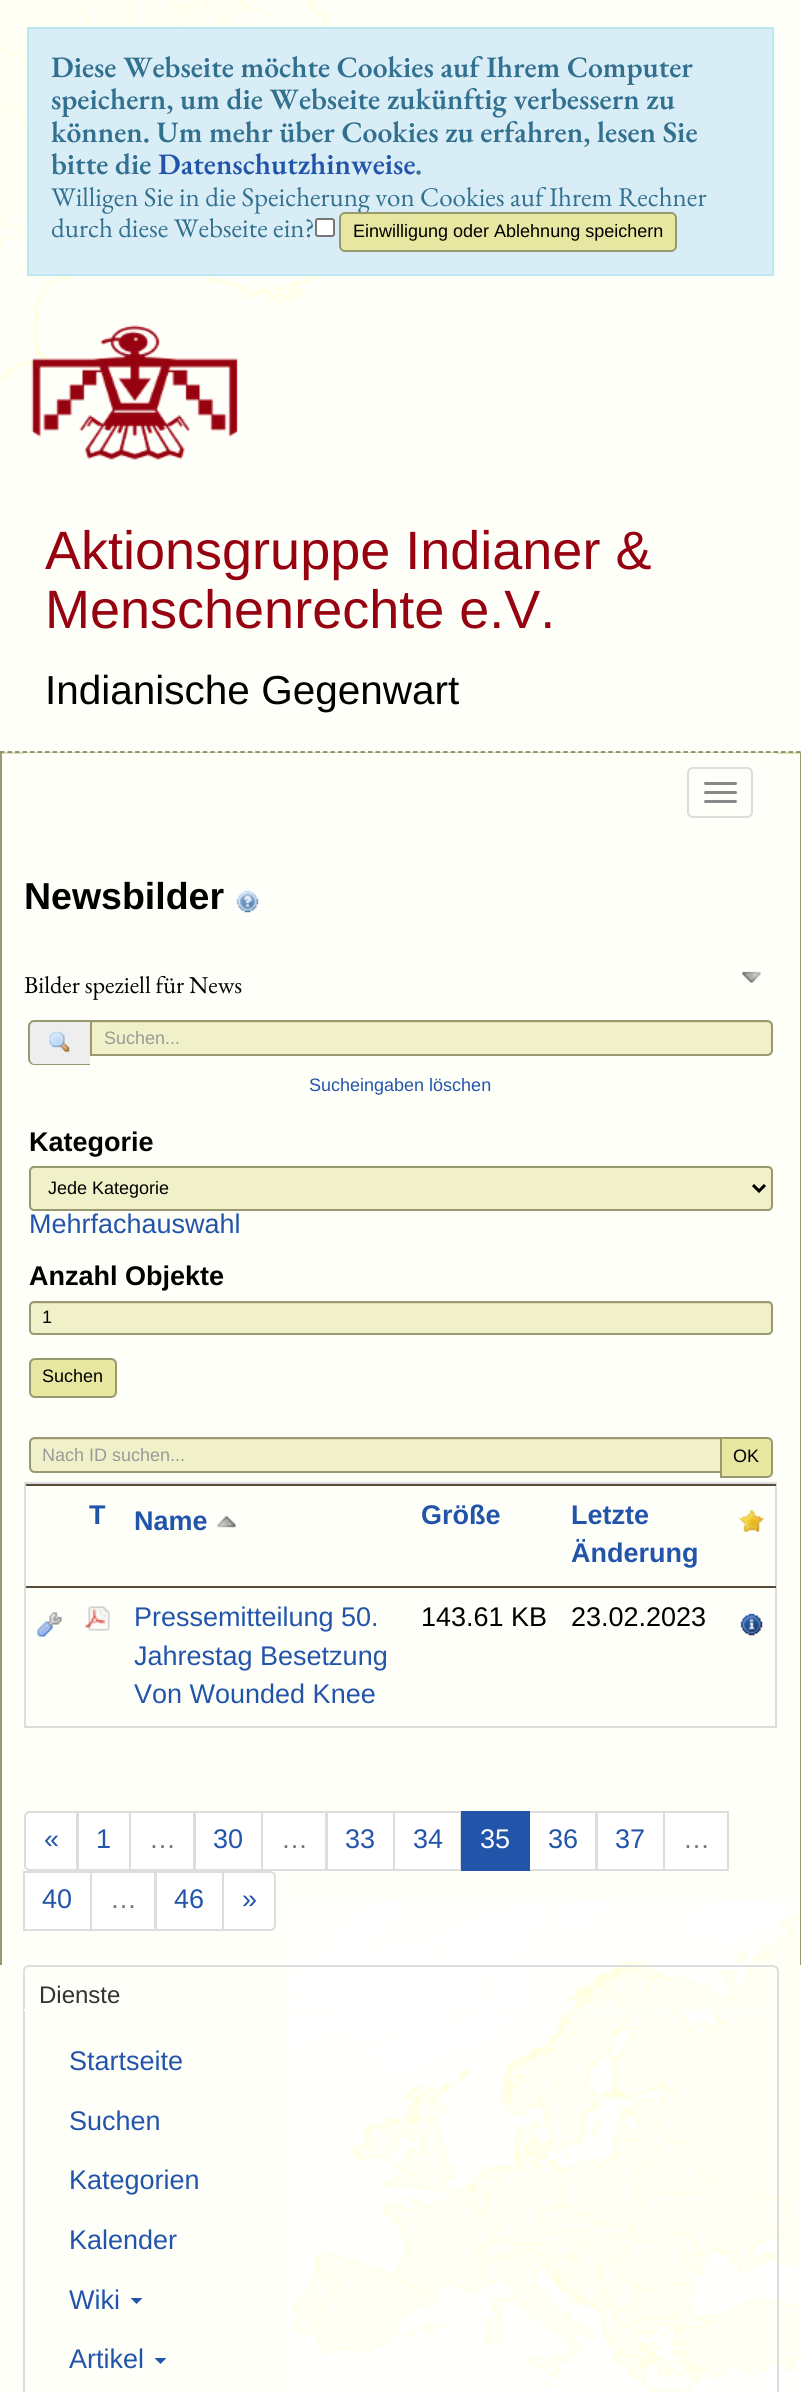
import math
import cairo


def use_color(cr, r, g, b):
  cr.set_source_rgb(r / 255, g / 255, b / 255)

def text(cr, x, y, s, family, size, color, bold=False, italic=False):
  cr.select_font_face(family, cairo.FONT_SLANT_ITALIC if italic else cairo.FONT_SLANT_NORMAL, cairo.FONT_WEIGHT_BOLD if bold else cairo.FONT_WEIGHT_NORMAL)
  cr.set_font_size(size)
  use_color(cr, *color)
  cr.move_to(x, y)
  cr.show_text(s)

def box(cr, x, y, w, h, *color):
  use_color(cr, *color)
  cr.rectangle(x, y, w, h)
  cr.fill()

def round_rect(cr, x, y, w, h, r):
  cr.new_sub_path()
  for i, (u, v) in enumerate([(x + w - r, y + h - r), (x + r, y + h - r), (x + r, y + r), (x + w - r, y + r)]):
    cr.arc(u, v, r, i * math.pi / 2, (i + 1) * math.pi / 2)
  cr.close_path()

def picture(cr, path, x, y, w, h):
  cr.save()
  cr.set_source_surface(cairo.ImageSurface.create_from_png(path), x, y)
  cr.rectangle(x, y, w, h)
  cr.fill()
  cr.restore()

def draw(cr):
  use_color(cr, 255, 255, 250)
  cr.paint()
  picture(cr, "img_01.png", 287, 1901, 514, 491)
  picture(cr, "img_02.png", 0, 0, 392, 384)
  use_color(cr, 217, 237, 247)
  cr.rectangle(28, 28, 745, 247)
  cr.fill_preserve()
  use_color(cr, 188, 232, 241)
  cr.stroke()
  use_color(cr, 255, 255, 255)
  round_rect(cr, 316, 219, 18, 17, 2)
  cr.fill_preserve()
  use_color(cr, 118, 118, 118)
  cr.stroke()
  picture(cr, "img_03.png", 31, 325, 207, 136)
  box(cr, 0, 752, 801, 2, 224, 225, 184)
  cr.new_path()
  cr.move_to(0, 752)
  cr.line_to(801, 752)
  use_color(cr, 119, 119, 80)
  cr.set_line_width(1.5)
  cr.set_dash([4.5, 3.01])
  cr.stroke()
  box(cr, 800, 753, 1, 1212, 153, 153, 112)
  box(cr, 0, 753, 2, 1212, 153, 153, 112)
  box(cr, 24, 753, 753, 1, 255, 255, 250)
  round_rect(cr, 688, 768, 64, 49, 5)
  use_color(cr, 221, 221, 221)
  cr.set_line_width(2)
  cr.set_dash([])
  cr.stroke()
  use_color(cr, 136, 136, 136)
  round_rect(cr, 704, 782, 33, 3, 1.5)
  cr.fill()
  round_rect(cr, 704, 791, 33, 3, 1.5)
  cr.fill()
  round_rect(cr, 704, 800, 33, 3, 1.5)
  cr.fill()
  picture(cr, "img_04.png", 236, 890, 23, 23)
  picture(cr, "img_05.png", 742, 971, 19, 12)
  use_color(cr, 238, 238, 238)
  cr.new_path()
  cr.move_to(35, 1020)
  cr.line_to(90, 1020)
  cr.line_to(90, 1065)
  cr.line_to(35, 1065)
  cr.curve_to(31.5, 1065, 29, 1062.5, 29, 1059)
  cr.line_to(29, 1026)
  cr.curve_to(29, 1022.5, 31.5, 1020, 35, 1020)
  cr.close_path()
  cr.fill()
  use_color(cr, 153, 153, 112)
  cr.set_fill_rule(cairo.FILL_RULE_EVEN_ODD)
  cr.new_path()
  cr.move_to(34, 1020)
  cr.line_to(90, 1020)
  cr.line_to(90, 1065)
  cr.line_to(34, 1065)
  cr.curve_to(31, 1065, 28, 1062, 28, 1059)
  cr.line_to(28, 1026)
  cr.curve_to(28, 1023, 31, 1020, 34, 1020)
  cr.close_path()
  cr.move_to(34, 1022)
  cr.line_to(90, 1022)
  cr.line_to(90, 1064)
  cr.line_to(34, 1064)
  cr.curve_to(32, 1064, 30, 1061, 30, 1059)
  cr.line_to(30, 1026)
  cr.curve_to(30, 1024, 32, 1022, 34, 1022)
  cr.close_path()
  cr.fill()
  picture(cr, "img_06.png", 49, 1031, 21, 21)
  use_color(cr, 241, 241, 201)
  cr.new_path()
  cr.move_to(90, 1020)
  cr.line_to(767, 1020)
  cr.curve_to(770.5, 1020, 773, 1022.5, 773, 1026)
  cr.line_to(773, 1050)
  cr.curve_to(773, 1053.5, 770.5, 1056, 767, 1056)
  cr.line_to(90, 1056)
  cr.close_path()
  cr.fill()
  use_color(cr, 223, 223, 186)
  cr.set_fill_rule(cairo.FILL_RULE_WINDING)
  cr.new_path()
  cr.move_to(92, 1023)
  cr.line_to(766, 1023)
  cr.curve_to(769, 1023, 771, 1025, 771, 1028)
  cr.curve_to(771, 1025, 769, 1022, 766, 1022)
  cr.line_to(92, 1022)
  cr.close_path()
  cr.fill()
  cr.new_path()
  cr.move_to(91, 1021)
  cr.line_to(767, 1021)
  cr.curve_to(770, 1021, 772, 1023, 772, 1026)
  cr.line_to(772, 1050)
  cr.curve_to(772, 1053, 770, 1055, 767, 1055)
  cr.line_to(91, 1055)
  cr.close_path()
  use_color(cr, 153, 153, 112)
  cr.stroke()
  use_color(cr, 241, 241, 201)
  round_rect(cr, 29, 1166, 744, 45, 5)
  cr.fill()
  use_color(cr, 223, 223, 186)
  cr.new_path()
  cr.move_to(33, 1168)
  cr.line_to(768, 1168)
  cr.curve_to(770, 1168, 771, 1170, 771, 1172)
  cr.line_to(771, 1170)
  cr.curve_to(771, 1168, 770, 1167, 768, 1167)
  cr.line_to(33, 1167)
  cr.curve_to(31, 1167, 30, 1168, 30, 1170)
  cr.line_to(30, 1172)
  cr.curve_to(30, 1170, 31, 1168, 33, 1168)
  cr.close_path()
  cr.fill()
  round_rect(cr, 30, 1167, 742, 43, 4)
  use_color(cr, 153, 153, 112)
  cr.stroke()
  cr.new_path()
  cr.move_to(753, 1185)
  cr.line_to(759, 1191)
  cr.line_to(765, 1185)
  use_color(cr, 0, 0, 0)
  cr.set_line_width(3)
  cr.stroke()
  use_color(cr, 241, 241, 201)
  round_rect(cr, 29, 1301, 744, 34, 5)
  cr.fill()
  use_color(cr, 223, 223, 186)
  cr.new_path()
  cr.move_to(33, 1304)
  cr.line_to(768, 1304)
  cr.curve_to(770, 1304, 771, 1305, 771, 1306)
  cr.curve_to(771, 1304, 770, 1302, 768, 1302)
  cr.line_to(33, 1302)
  cr.curve_to(31, 1302, 30, 1304, 30, 1306)
  cr.curve_to(30, 1305, 31, 1304, 33, 1304)
  cr.close_path()
  cr.fill()
  round_rect(cr, 30, 1302, 742, 32, 4)
  use_color(cr, 153, 153, 112)
  cr.set_line_width(2)
  cr.stroke()
  use_color(cr, 231, 231, 161)
  round_rect(cr, 30, 1359, 86, 38, 5)
  cr.fill_preserve()
  use_color(cr, 153, 153, 112)
  cr.stroke()
  use_color(cr, 241, 241, 201)
  cr.new_path()
  cr.move_to(35, 1437)
  cr.line_to(722, 1437)
  cr.line_to(722, 1473)
  cr.line_to(35, 1473)
  cr.curve_to(31.5, 1473, 29, 1470.5, 29, 1467)
  cr.line_to(29, 1443)
  cr.curve_to(29, 1439.5, 31.5, 1437, 35, 1437)
  cr.close_path()
  cr.fill()
  use_color(cr, 223, 223, 186)
  cr.new_path()
  cr.move_to(34, 1440)
  cr.line_to(720, 1440)
  cr.line_to(720, 1439)
  cr.line_to(35, 1439)
  cr.curve_to(32, 1439, 30, 1441, 30, 1444)
  cr.curve_to(30, 1442, 32, 1440, 34, 1440)
  cr.close_path()
  cr.fill()
  cr.new_path()
  cr.move_to(35, 1438)
  cr.line_to(721, 1438)
  cr.line_to(721, 1472)
  cr.line_to(35, 1472)
  cr.curve_to(32, 1472, 30, 1470, 30, 1467)
  cr.line_to(30, 1443)
  cr.curve_to(30, 1440, 32, 1438, 35, 1438)
  cr.close_path()
  use_color(cr, 153, 153, 112)
  cr.stroke()
  use_color(cr, 231, 231, 161)
  cr.new_path()
  cr.move_to(721, 1438)
  cr.line_to(767, 1438)
  cr.curve_to(770, 1438, 772, 1440, 772, 1443)
  cr.line_to(772, 1472)
  cr.curve_to(772, 1475, 770, 1477, 767, 1477)
  cr.line_to(721, 1477)
  cr.close_path()
  cr.fill_preserve()
  use_color(cr, 153, 153, 112)
  cr.stroke()
  cr.rectangle(25, 1483, 751, 244)
  use_color(cr, 221, 221, 221)
  cr.stroke()
  box(cr, 26, 1484, 750, 2, 90, 74, 57)
  picture(cr, "img_07.png", 739, 1510, 25, 22)
  picture(cr, "img_08.png", 217, 1516, 19, 12)
  box(cr, 26, 1586, 750, 2, 90, 74, 57)
  picture(cr, "img_09.png", 740, 1613, 23, 23)
  picture(cr, "img_10.png", 37, 1612, 25, 25)
  picture(cr, "img_11.png", 85, 1606, 25, 25)
  use_color(cr, 255, 255, 255)
  cr.new_path()
  cr.move_to(30, 1812)
  cr.line_to(77, 1812)
  cr.line_to(77, 1870)
  cr.line_to(30, 1870)
  cr.curve_to(27, 1870, 25, 1868, 25, 1865)
  cr.line_to(25, 1817)
  cr.curve_to(25, 1814, 27, 1812, 30, 1812)
  cr.close_path()
  cr.fill_preserve()
  use_color(cr, 221, 221, 221)
  cr.stroke()
  use_color(cr, 255, 255, 255)
  cr.rectangle(78, 1812, 52, 58)
  cr.fill_preserve()
  use_color(cr, 221, 221, 221)
  cr.stroke()
  use_color(cr, 255, 255, 255)
  cr.rectangle(130, 1812, 64, 58)
  cr.fill_preserve()
  use_color(cr, 221, 221, 221)
  cr.stroke()
  use_color(cr, 255, 255, 255)
  cr.rectangle(195, 1812, 67, 58)
  cr.fill_preserve()
  use_color(cr, 221, 221, 221)
  cr.stroke()
  use_color(cr, 255, 255, 255)
  cr.rectangle(262, 1812, 64, 58)
  cr.fill_preserve()
  use_color(cr, 221, 221, 221)
  cr.stroke()
  use_color(cr, 255, 255, 255)
  cr.rectangle(327, 1812, 67, 58)
  cr.fill_preserve()
  use_color(cr, 221, 221, 221)
  cr.stroke()
  use_color(cr, 255, 255, 255)
  cr.rectangle(394, 1812, 67, 58)
  cr.fill_preserve()
  use_color(cr, 221, 221, 221)
  cr.stroke()
  use_color(cr, 255, 255, 255)
  cr.rectangle(529, 1812, 67, 58)
  cr.fill_preserve()
  use_color(cr, 221, 221, 221)
  cr.stroke()
  box(cr, 461, 1811, 69, 60, 34, 85, 170)
  use_color(cr, 255, 255, 255)
  cr.rectangle(597, 1812, 67, 58)
  cr.fill_preserve()
  use_color(cr, 221, 221, 221)
  cr.stroke()
  use_color(cr, 255, 255, 255)
  cr.rectangle(664, 1812, 64, 58)
  cr.fill_preserve()
  use_color(cr, 221, 221, 221)
  cr.stroke()
  use_color(cr, 255, 255, 255)
  cr.rectangle(24, 1872, 67, 58)
  cr.fill_preserve()
  use_color(cr, 221, 221, 221)
  cr.stroke()
  use_color(cr, 255, 255, 255)
  cr.rectangle(91, 1872, 64, 58)
  cr.fill_preserve()
  use_color(cr, 221, 221, 221)
  cr.stroke()
  use_color(cr, 255, 255, 255)
  cr.rectangle(156, 1872, 67, 58)
  cr.fill_preserve()
  use_color(cr, 221, 221, 221)
  cr.stroke()
  use_color(cr, 255, 255, 255)
  cr.new_path()
  cr.move_to(223, 1872)
  cr.line_to(270, 1872)
  cr.curve_to(273, 1872, 275, 1874, 275, 1877)
  cr.line_to(275, 1925)
  cr.curve_to(275, 1928, 273, 1930, 270, 1930)
  cr.line_to(223, 1930)
  cr.close_path()
  cr.fill_preserve()
  use_color(cr, 221, 221, 221)
  cr.stroke()
  round_rect(cr, 24, 1966, 754, 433, 5)
  cr.stroke()
  box(cr, 24, 2009, 753, 2, 255, 255, 250)
  use_color(cr, 34, 85, 170)
  cr.new_path()
  cr.move_to(130.5, 2298)
  cr.line_to(142.5, 2298)
  cr.line_to(136.5, 2304)
  cr.close_path()
  cr.fill()
  cr.new_path()
  cr.move_to(154.5, 2358)
  cr.line_to(166.5, 2358)
  cr.line_to(160.5, 2364)
  cr.close_path()
  cr.fill()
  text(cr, 51, 77, "Diese Webseite möchte Cookies auf Ihrem Computer", "EB Garamond SemiBold", 29.7, (49, 112, 143))
  text(cr, 51, 109, "speichern, um die Webseite zukünftig verbessern zu", "EB Garamond SemiBold", 29.7, (49, 112, 143))
  text(cr, 51, 142, "können. Um mehr über Cookies zu erfahren, lesen Sie", "EB Garamond SemiBold", 29.7, (49, 112, 143))
  text(cr, 51, 174, "bitte die", "EB Garamond SemiBold", 29.7, (49, 112, 143))
  text(cr, 158, 174, "Datenschutzhinweise", "EB Garamond SemiBold", 29.7, (34, 85, 170))
  text(cr, 415, 174, ".", "EB Garamond SemiBold", 29.7, (49, 112, 143))
  text(cr, 51, 206, "Willigen Sie in die Speicherung von Cookies auf Ihrem Rechner", "EB Garamond", 27, (49, 112, 143))
  text(cr, 51, 237, "durch diese Webseite ein?", "EB Garamond", 27, (49, 112, 143))
  use_color(cr, 231, 231, 161)
  round_rect(cr, 340, 213, 336, 38, 5)
  cr.fill_preserve()
  use_color(cr, 153, 153, 112)
  cr.stroke()
  text(cr, 353, 237, "Einwilligung oder Ablehnung speichern", "Liberation Sans", 18, (0, 0, 0))
  text(cr, 45, 569, "Aktionsgruppe Indianer &", "Liberation Sans", 54, (151, 2, 16))
  text(cr, 45, 628, "Menschenrechte e.V.", "Liberation Sans", 54, (151, 2, 16))
  text(cr, 45, 704, "Indianische Gegenwart", "Liberation Sans", 40.5, (0, 0, 0))
  text(cr, 24, 909, "Newsbilder", "Liberation Sans", 37.5, (0, 0, 0), bold=True)
  text(cr, 24, 993, "Bilder speziell für News", "EB Garamond", 24.25, (0, 0, 0))
  text(cr, 104, 1044, "Suchen...", "Liberation Sans", 18, (153, 153, 153))
  text(cr, 309, 1091, "Sucheingaben löschen", "Liberation Sans", 18, (34, 85, 170))
  text(cr, 29, 1151, "Kategorie", "Liberation Sans", 27, (0, 0, 0), bold=True)
  text(cr, 48, 1194, "Jede Kategorie", "Liberation Sans", 18, (0, 0, 0))
  text(cr, 29, 1233, "Mehrfachauswahl", "Liberation Sans", 27, (34, 85, 170))
  text(cr, 29, 1285, "Anzahl Objekte", "Liberation Sans", 27, (0, 0, 0), bold=True)
  text(cr, 42, 1323, "1", "Liberation Sans", 18, (0, 0, 0))
  text(cr, 42, 1382, "Suchen", "Liberation Sans", 18, (0, 0, 0))
  text(cr, 42, 1461, "Nach ID suchen...", "Liberation Sans", 18, (153, 153, 153))
  text(cr, 733, 1462, "OK", "Liberation Sans", 18, (0, 0, 0))
  text(cr, 89, 1524, "T", "Liberation Sans", 27, (34, 85, 170), bold=True)
  text(cr, 134, 1530, "Name", "Liberation Sans", 27, (34, 85, 170), bold=True)
  text(cr, 421, 1524, "Größe", "Liberation Sans", 27, (34, 85, 170), bold=True)
  text(cr, 571, 1524, "Letzte", "Liberation Sans", 27, (34, 85, 170), bold=True)
  text(cr, 571, 1562, "Änderung", "Liberation Sans", 27, (34, 85, 170), bold=True)
  text(cr, 134, 1626, "Pressemitteilung 50.", "Liberation Sans", 27, (34, 85, 170))
  text(cr, 134, 1665, "Jahrestag Besetzung", "Liberation Sans", 27, (34, 85, 170))
  text(cr, 134, 1703, "Von Wounded Knee", "Liberation Sans", 27, (34, 85, 170))
  text(cr, 421, 1626, "143.61 KB", "Liberation Sans", 27, (0, 0, 0))
  text(cr, 571, 1626, "23.02.2023", "Liberation Sans", 27, (0, 0, 0))
  text(cr, 44, 1848, "«", "Liberation Sans", 27, (34, 85, 170))
  text(cr, 96, 1848, "1", "Liberation Sans", 27, (34, 85, 170))
  text(cr, 149, 1848, "…", "Liberation Sans", 27, (119, 119, 119))
  text(cr, 213, 1848, "30", "Liberation Sans", 27, (34, 85, 170))
  text(cr, 281, 1848, "…", "Liberation Sans", 27, (119, 119, 119))
  text(cr, 345, 1848, "33", "Liberation Sans", 27, (34, 85, 170))
  text(cr, 413, 1848, "34", "Liberation Sans", 27, (34, 85, 170))
  text(cr, 480, 1848, "35", "Liberation Sans", 27, (255, 255, 255))
  text(cr, 548, 1848, "36", "Liberation Sans", 27, (34, 85, 170))
  text(cr, 615, 1848, "37", "Liberation Sans", 27, (34, 85, 170))
  text(cr, 683, 1848, "…", "Liberation Sans", 27, (119, 119, 119))
  text(cr, 42, 1908, "40", "Liberation Sans", 27, (34, 85, 170))
  text(cr, 110, 1908, "…", "Liberation Sans", 27, (119, 119, 119))
  text(cr, 174, 1908, "46", "Liberation Sans", 27, (34, 85, 170))
  text(cr, 242, 1908, "»", "Liberation Sans", 27, (34, 85, 170))
  text(cr, 39, 2003, "Dienste", "Liberation Sans", 24, (51, 51, 51))
  text(cr, 69, 2070, "Startseite", "Liberation Sans", 27, (34, 85, 170))
  text(cr, 69, 2130, "Suchen", "Liberation Sans", 27, (34, 85, 170))
  text(cr, 69, 2189, "Kategorien", "Liberation Sans", 27, (34, 85, 170))
  text(cr, 69, 2249, "Kalender", "Liberation Sans", 27, (34, 85, 170))
  text(cr, 69, 2309, "Wiki", "Liberation Sans", 27, (34, 85, 170))
  text(cr, 69, 2368, "Artikel", "Liberation Sans", 27, (34, 85, 170))


surface = cairo.ImageSurface(cairo.FORMAT_RGB24, 801, 2392)
cr = cairo.Context(surface)
options = cairo.FontOptions()
options.set_hint_metrics(cairo.HINT_METRICS_OFF)
options.set_hint_style(cairo.HINT_STYLE_NONE)
cr.set_font_options(options)
cr.set_miter_limit(4)
draw(cr)
surface.write_to_png("out.png")
